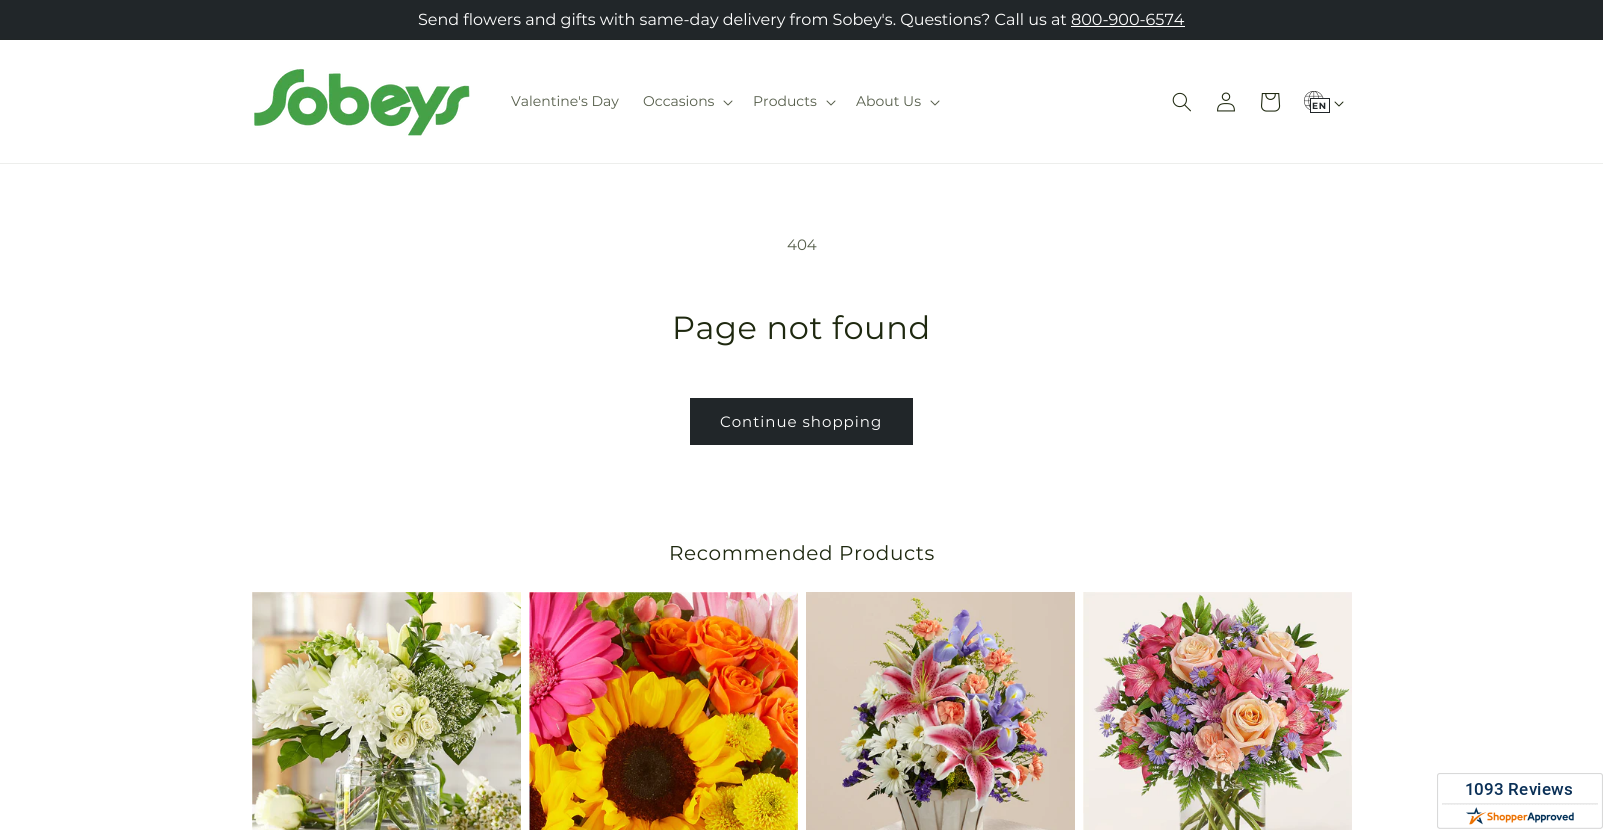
import math
import cairo


def use_color(cr, r, g, b):
  cr.set_source_rgb(r / 255, g / 255, b / 255)

def text(cr, x, y, s, family, size, color, bold=False, italic=False):
  cr.select_font_face(family, cairo.FONT_SLANT_ITALIC if italic else cairo.FONT_SLANT_NORMAL, cairo.FONT_WEIGHT_BOLD if bold else cairo.FONT_WEIGHT_NORMAL)
  cr.set_font_size(size)
  use_color(cr, *color)
  cr.move_to(x, y)
  cr.show_text(s)

def spaced_text(cr, x, y, s, letter, word):
  cr.move_to(x, y)
  for ch in s:
    cr.show_text(ch)
    cr.rel_move_to(letter + word * (ch == ' '), 0)

def box(cr, x, y, w, h, *color):
  use_color(cr, *color)
  cr.rectangle(x, y, w, h)
  cr.fill()

def picture(cr, path, x, y, w, h):
  cr.save()
  cr.set_source_surface(cairo.ImageSurface.create_from_png(path), x, y)
  cr.rectangle(x, y, w, h)
  cr.fill()
  cr.restore()

def draw(cr):
  use_color(cr, 255, 255, 255)
  cr.paint()
  box(cr, 0, 0, 1603, 39, 33, 38, 41)
  box(cr, 0, 39, 1603, 1, 33, 38, 39)
  box(cr, 1071, 26, 114, 1, 255, 255, 255)
  box(cr, 0, 163, 1603, 1, 237, 238, 236)
  picture(cr, "img_01.png", 254, 68, 216, 68)
  picture(cr, "img_02.png", 723, 100, 10, 6)
  picture(cr, "img_02.png", 826, 100, 10, 6)
  picture(cr, "img_02.png", 930, 100, 10, 6)
  picture(cr, "img_03.png", 1172, 92, 19, 20)
  picture(cr, "img_04.png", 1217, 92, 18, 20)
  picture(cr, "img_05.png", 1261, 93, 20, 19)
  picture(cr, "img_06.png", 1304, 91, 20, 19)
  picture(cr, "img_07.png", 1334, 101, 10, 6)
  box(cr, 1311, 99, 13, 11, 255, 255, 255)
  cr.rectangle(1310.5, 98.5, 19, 14)
  use_color(cr, 33, 38, 41)
  cr.set_line_width(1)
  cr.stroke()
  box(cr, 690, 398, 223, 47, 33, 38, 41)
  picture(cr, "img_08.png", 252, 592, 269, 238)
  picture(cr, "img_09.png", 529, 592, 269, 238)
  picture(cr, "img_10.png", 806, 592, 269, 238)
  picture(cr, "img_11.png", 1083, 592, 269, 238)
  picture(cr, "img_12.png", 1437, 773, 166, 56)
  text(cr, 418, 25, "Send flowers and gifts with same-day delivery from Sobey's. Questions? Call us at 800-900-6574", "Montserrat", 16, (255, 255, 255))
  text(cr, 511, 106, "Valentine's Day", "Montserrat", 14, (86, 94, 75))
  text(cr, 643, 106, "Occasions", "Montserrat", 14, (86, 94, 75))
  text(cr, 753, 106, "Products", "Montserrat", 14, (86, 94, 75))
  text(cr, 856, 106, "About Us", "Montserrat", 14, (86, 94, 75))
  cr.select_font_face("Montserrat", cairo.FONT_SLANT_NORMAL, cairo.FONT_WEIGHT_BOLD)
  cr.set_font_size(9)
  use_color(cr, 33, 38, 41)
  spaced_text(cr, 1312, 109, "EN", 0.6, 0)
  text(cr, 787, 250, "404", "Montserrat", 15, (86, 94, 75))
  cr.set_font_size(32)
  use_color(cr, 30, 40, 15)
  spaced_text(cr, 672, 339, "Page not found", 0.6, 0)
  cr.set_font_size(15)
  use_color(cr, 255, 255, 255)
  spaced_text(cr, 720, 427, "Continue shopping", 1, 0)
  cr.set_font_size(20)
  use_color(cr, 30, 40, 15)
  spaced_text(cr, 669, 560, "Recommended Products", 0.6, 0)


surface = cairo.ImageSurface(cairo.FORMAT_RGB24, 1603, 830)
cr = cairo.Context(surface)
options = cairo.FontOptions()
options.set_hint_metrics(cairo.HINT_METRICS_OFF)
options.set_hint_style(cairo.HINT_STYLE_NONE)
cr.set_font_options(options)
cr.set_miter_limit(4)
draw(cr)
surface.write_to_png("out.png")
